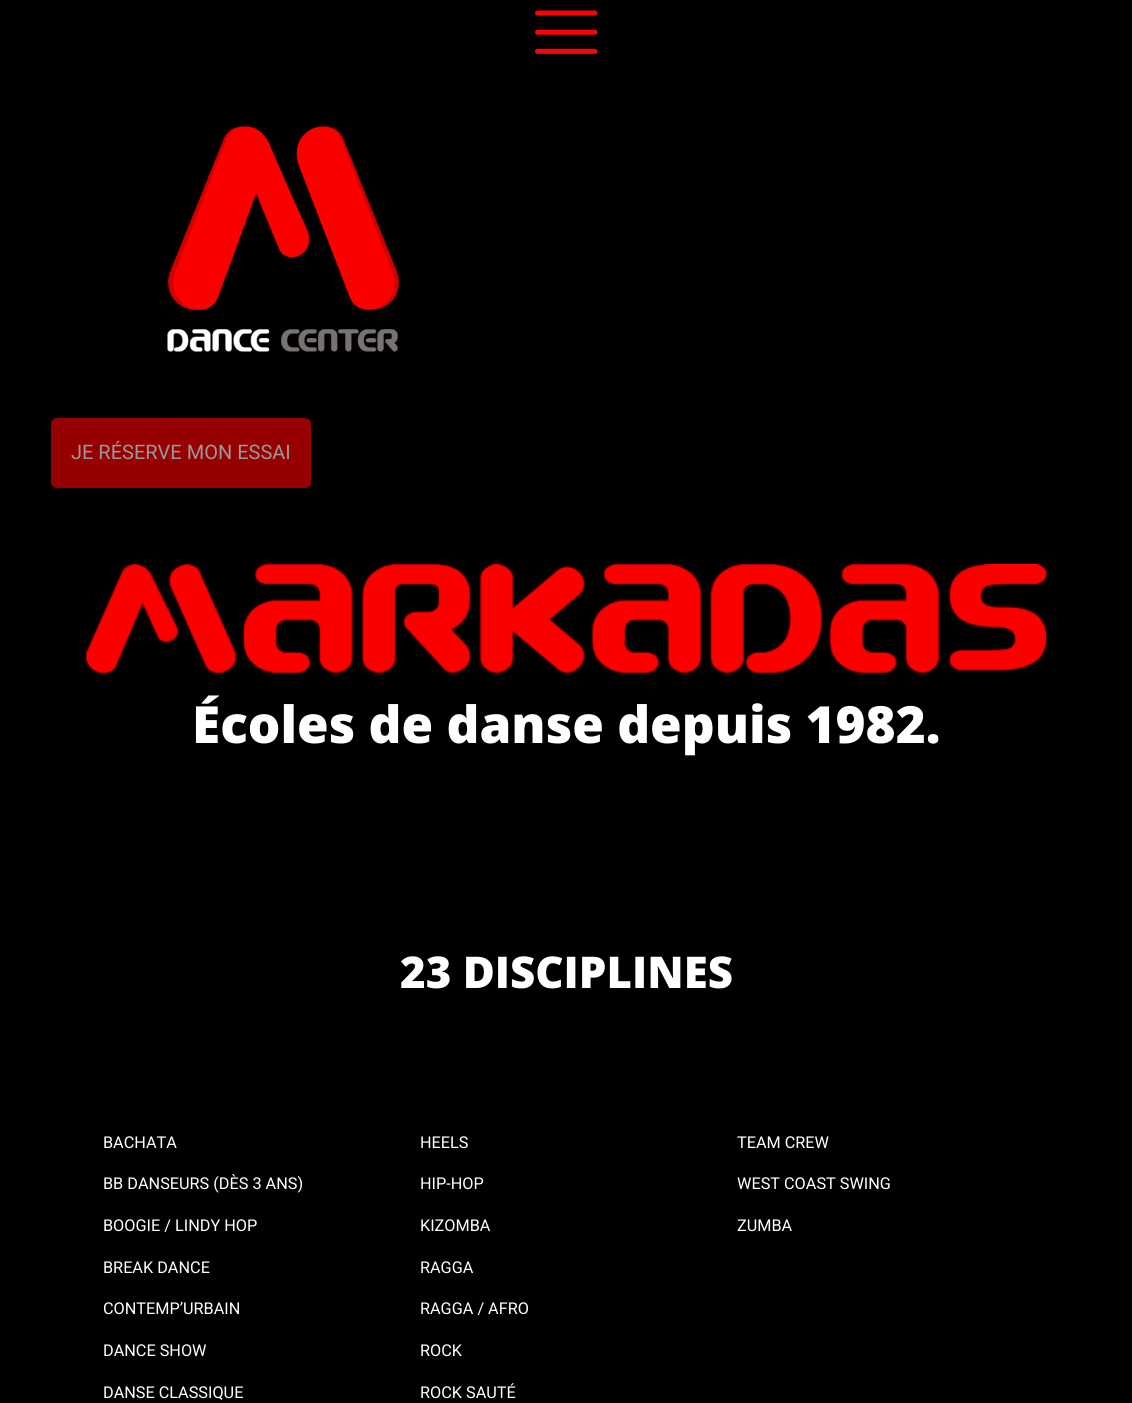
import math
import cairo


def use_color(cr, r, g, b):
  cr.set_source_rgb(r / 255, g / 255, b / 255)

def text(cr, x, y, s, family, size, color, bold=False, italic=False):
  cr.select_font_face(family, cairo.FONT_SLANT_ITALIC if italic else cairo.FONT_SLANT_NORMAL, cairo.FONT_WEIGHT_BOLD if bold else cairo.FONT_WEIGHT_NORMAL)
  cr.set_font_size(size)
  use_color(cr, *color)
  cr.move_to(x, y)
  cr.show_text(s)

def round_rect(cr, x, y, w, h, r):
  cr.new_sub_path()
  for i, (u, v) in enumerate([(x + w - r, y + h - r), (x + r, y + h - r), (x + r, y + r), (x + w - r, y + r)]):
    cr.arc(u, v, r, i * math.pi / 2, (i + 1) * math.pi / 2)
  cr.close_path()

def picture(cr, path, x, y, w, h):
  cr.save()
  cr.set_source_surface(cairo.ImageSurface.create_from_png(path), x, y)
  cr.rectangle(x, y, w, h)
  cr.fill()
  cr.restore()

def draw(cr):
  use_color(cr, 0, 0, 0)
  cr.paint()
  picture(cr, "img_01.png", 535, 10, 63, 44)
  picture(cr, "img_02.png", 167, 126, 232, 226)
  use_color(cr, 151, 0, 0)
  round_rect(cr, 51, 418, 260, 70, 6)
  cr.fill()
  picture(cr, "img_03.png", 86, 564, 961, 109)
  text(cr, 71, 459, "JE RÉSERVE MON ESSAI", "Roboto", 20, (153, 153, 153))
  text(cr, 192, 743, "Écoles de danse depuis 1982.", "Open Sans ExtraBold", 51.25, (255, 255, 255))
  text(cr, 400, 988, "23 DISCIPLINES", "Open Sans ExtraBold", 43.75, (255, 255, 255))
  text(cr, 103, 1148, "BACHATA", "Roboto", 16.25, (255, 255, 255))
  text(cr, 103, 1189, "BB DANSEURS (DÈS 3 ANS)", "Roboto", 16.25, (255, 255, 255))
  text(cr, 103, 1231, "BOOGIE / LINDY HOP", "Roboto", 16.25, (255, 255, 255))
  text(cr, 103, 1273, "BREAK DANCE", "Roboto", 16.25, (255, 255, 255))
  text(cr, 103, 1314, "CONTEMP’URBAIN", "Roboto", 16.25, (255, 255, 255))
  text(cr, 103, 1356, "DANCE SHOW", "Roboto", 16.25, (255, 255, 255))
  text(cr, 103, 1398, "DANSE CLASSIQUE", "Roboto", 16.25, (255, 255, 255))
  text(cr, 420, 1148, "HEELS", "Roboto", 16.25, (255, 255, 255))
  text(cr, 420, 1189, "HIP-HOP", "Roboto", 16.25, (255, 255, 255))
  text(cr, 420, 1231, "KIZOMBA", "Roboto", 16.25, (255, 255, 255))
  text(cr, 420, 1273, "RAGGA", "Roboto", 16.25, (255, 255, 255))
  text(cr, 420, 1314, "RAGGA / AFRO", "Roboto", 16.25, (255, 255, 255))
  text(cr, 420, 1356, "ROCK", "Roboto", 16.25, (255, 255, 255))
  text(cr, 420, 1398, "ROCK SAUTÉ", "Roboto", 16.25, (255, 255, 255))
  text(cr, 737, 1148, "TEAM CREW", "Roboto", 16.25, (255, 255, 255))
  text(cr, 737, 1189, "WEST COAST SWING", "Roboto", 16.25, (255, 255, 255))
  text(cr, 737, 1231, "ZUMBA", "Roboto", 16.25, (255, 255, 255))


surface = cairo.ImageSurface(cairo.FORMAT_RGB24, 1132, 1403)
cr = cairo.Context(surface)
options = cairo.FontOptions()
options.set_hint_metrics(cairo.HINT_METRICS_OFF)
options.set_hint_style(cairo.HINT_STYLE_NONE)
cr.set_font_options(options)
cr.set_miter_limit(4)
draw(cr)
surface.write_to_png("out.png")
